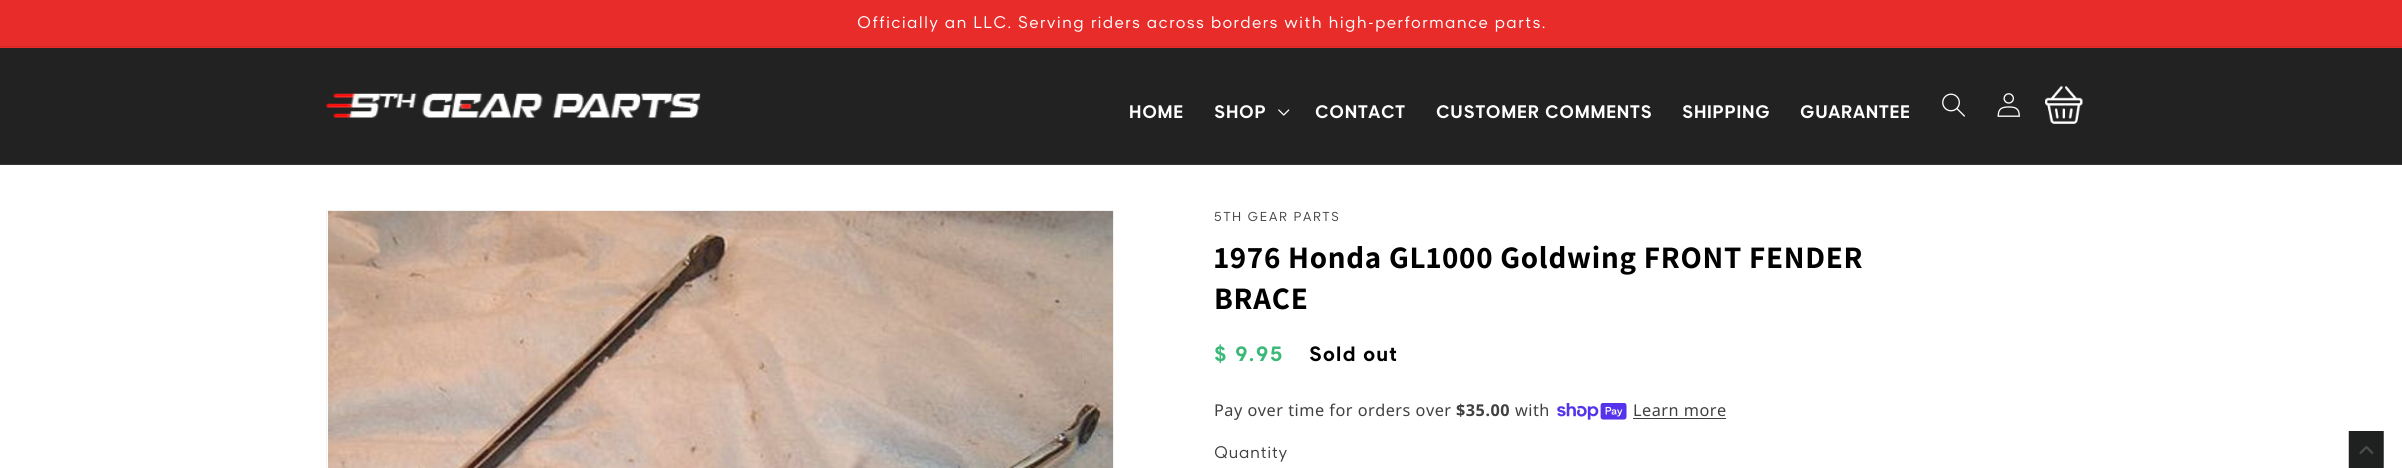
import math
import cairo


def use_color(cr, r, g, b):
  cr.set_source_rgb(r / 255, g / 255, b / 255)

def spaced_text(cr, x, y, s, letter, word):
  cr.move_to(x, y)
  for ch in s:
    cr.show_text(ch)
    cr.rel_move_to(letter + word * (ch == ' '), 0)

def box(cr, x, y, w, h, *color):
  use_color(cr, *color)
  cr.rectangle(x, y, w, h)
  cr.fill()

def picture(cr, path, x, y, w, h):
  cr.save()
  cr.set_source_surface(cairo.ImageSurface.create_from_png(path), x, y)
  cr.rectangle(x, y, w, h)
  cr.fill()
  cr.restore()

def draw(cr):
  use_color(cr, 255, 255, 255)
  cr.paint()
  box(cr, 0, 0, 2402, 48, 232, 44, 42)
  box(cr, 0, 46, 2402, 1, 213, 40, 39)
  box(cr, 0, 48, 2402, 116, 34, 34, 34)
  box(cr, 0, 164, 2402, 1, 52, 52, 52)
  picture(cr, "img_01.png", 326, 93, 375, 25)
  picture(cr, "img_02.png", 1278, 109, 12, 7)
  picture(cr, "img_03.png", 1942, 93, 23, 24)
  picture(cr, "img_04.png", 1997, 93, 23, 24)
  picture(cr, "img_05.png", 2045, 86, 38, 38)
  cr.rectangle(326.5, 210.5, 787, 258)
  use_color(cr, 242, 242, 242)
  cr.set_line_width(1)
  cr.stroke()
  picture(cr, "img_06.png", 328, 211, 785, 257)
  picture(cr, "img_07.png", 1557, 403, 70, 17)
  box(cr, 1633, 418, 93, 1, 64, 64, 64)
  picture(cr, "img_08.png", 2348, 431, 36, 37)
  cr.select_font_face("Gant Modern")
  cr.set_font_size(16.25)
  use_color(cr, 255, 255, 255)
  spaced_text(cr, 857, 28, "Officially an LLC. Serving riders across borders with high-performance parts.", 1.25, 0)
  cr.select_font_face("Gant Modern", cairo.FONT_SLANT_NORMAL, cairo.FONT_WEIGHT_BOLD)
  cr.set_font_size(17.5)
  spaced_text(cr, 1129, 118, "HOME", 0.75, 0)
  spaced_text(cr, 1214, 118, "SHOP", 0.75, 0)
  spaced_text(cr, 1315, 118, "CONTACT", 0.75, 0)
  spaced_text(cr, 1436, 118, "CUSTOMER COMMENTS", 0.75, 0)
  spaced_text(cr, 1682, 118, "SHIPPING", 0.75, 0)
  spaced_text(cr, 1800, 118, "GUARANTEE", 0.75, 0)
  cr.select_font_face("Gant Modern")
  cr.set_font_size(12.5)
  use_color(cr, 64, 64, 64)
  spaced_text(cr, 1214, 221, "5TH GEAR PARTS", 1.6, 0)
  cr.select_font_face("Assistant", cairo.FONT_SLANT_NORMAL, cairo.FONT_WEIGHT_BOLD)
  cr.set_font_size(31.25)
  use_color(cr, 0, 0, 0)
  spaced_text(cr, 1214, 268, "1976 Honda GL1000 Goldwing FRONT FENDER", 0.75, 0)
  spaced_text(cr, 1214, 309, "BRACE", 0.75, 0)
  cr.select_font_face("Gant Modern", cairo.FONT_SLANT_NORMAL, cairo.FONT_WEIGHT_BOLD)
  cr.set_font_size(20)
  use_color(cr, 60, 184, 120)
  spaced_text(cr, 1214, 361, "$ 9.95", 1.6, 0)
  use_color(cr, 0, 0, 0)
  spaced_text(cr, 1309, 361, "Sold out", 1.25, 0)
  cr.select_font_face("Noto Sans")
  cr.set_font_size(16.25)
  use_color(cr, 64, 64, 64)
  spaced_text(cr, 1214, 416, "Pay over time for orders over", 0.5, 0)
  cr.select_font_face("Noto Sans", cairo.FONT_SLANT_NORMAL, cairo.FONT_WEIGHT_BOLD)
  spaced_text(cr, 1456, 416, "$35.00", 0.5, 0)
  cr.select_font_face("Noto Sans")
  spaced_text(cr, 1515, 416, "with", 0.5, 0)
  spaced_text(cr, 1633, 416, "Learn more", 0.5, 0)
  cr.select_font_face("Gant Modern")
  spaced_text(cr, 1214, 458, "Quantity", 0.5, 0)


surface = cairo.ImageSurface(cairo.FORMAT_RGB24, 2402, 468)
cr = cairo.Context(surface)
options = cairo.FontOptions()
options.set_hint_metrics(cairo.HINT_METRICS_OFF)
options.set_hint_style(cairo.HINT_STYLE_NONE)
cr.set_font_options(options)
cr.set_miter_limit(4)
draw(cr)
surface.write_to_png("out.png")
